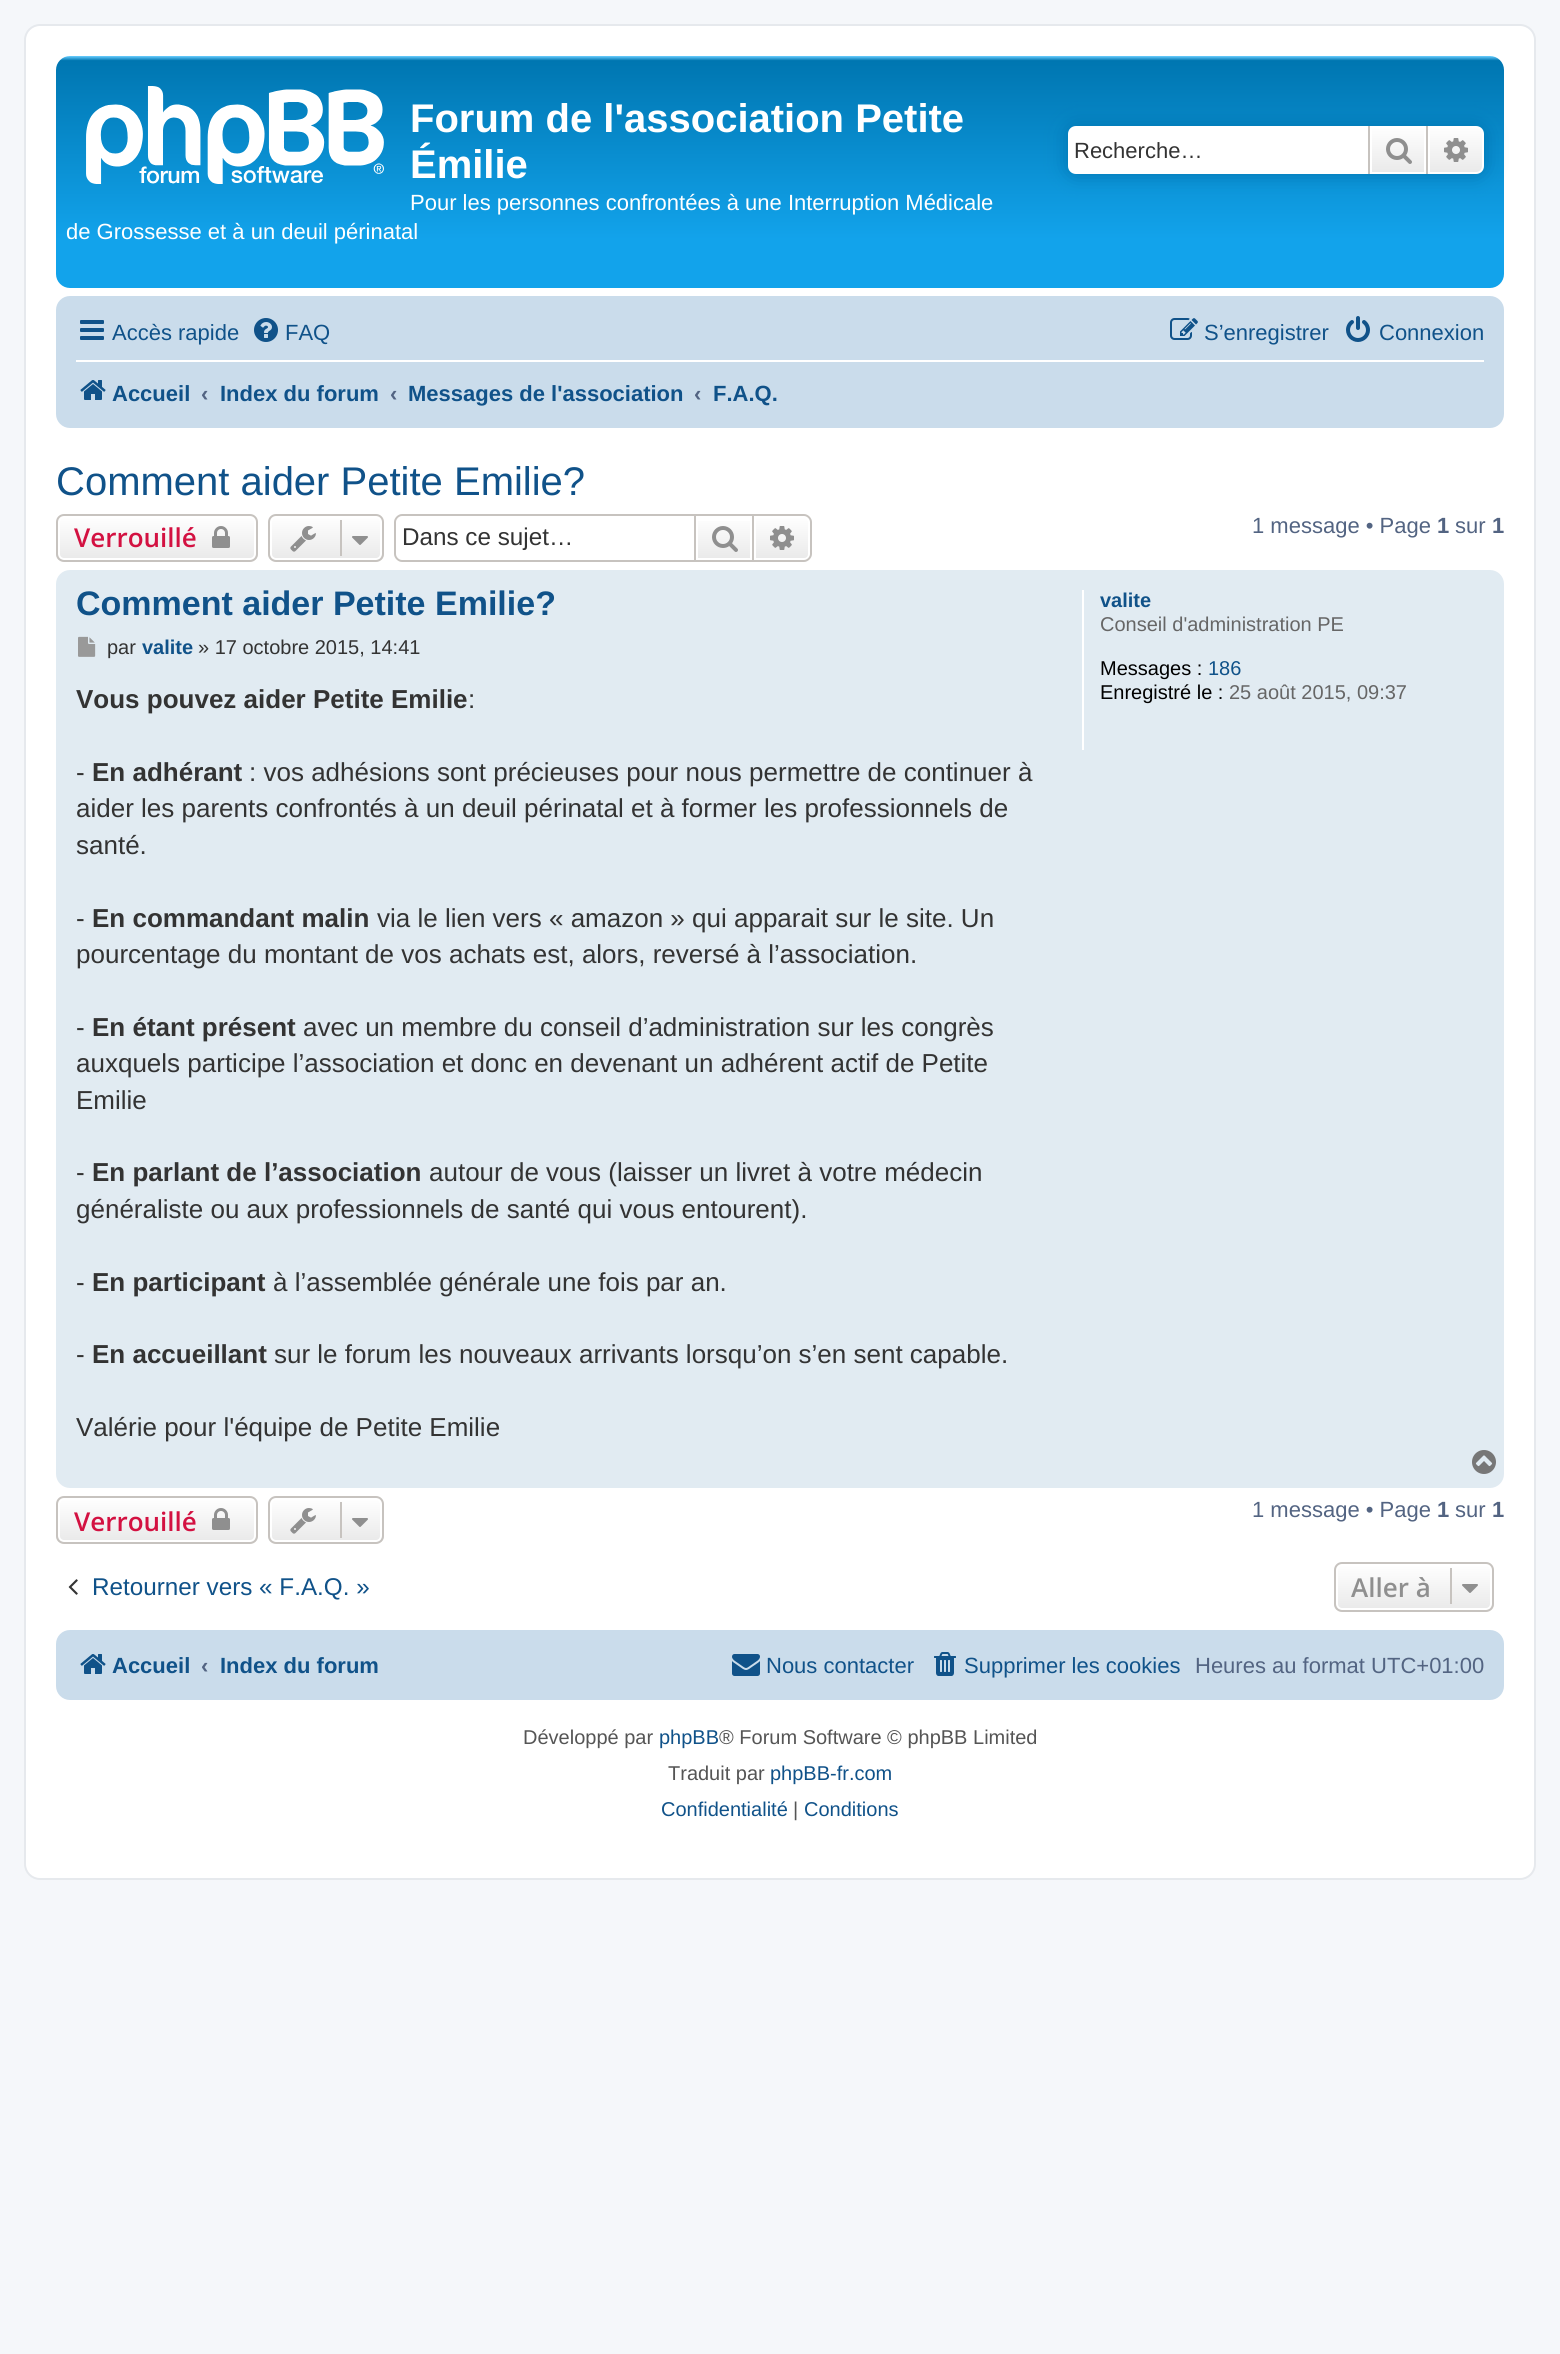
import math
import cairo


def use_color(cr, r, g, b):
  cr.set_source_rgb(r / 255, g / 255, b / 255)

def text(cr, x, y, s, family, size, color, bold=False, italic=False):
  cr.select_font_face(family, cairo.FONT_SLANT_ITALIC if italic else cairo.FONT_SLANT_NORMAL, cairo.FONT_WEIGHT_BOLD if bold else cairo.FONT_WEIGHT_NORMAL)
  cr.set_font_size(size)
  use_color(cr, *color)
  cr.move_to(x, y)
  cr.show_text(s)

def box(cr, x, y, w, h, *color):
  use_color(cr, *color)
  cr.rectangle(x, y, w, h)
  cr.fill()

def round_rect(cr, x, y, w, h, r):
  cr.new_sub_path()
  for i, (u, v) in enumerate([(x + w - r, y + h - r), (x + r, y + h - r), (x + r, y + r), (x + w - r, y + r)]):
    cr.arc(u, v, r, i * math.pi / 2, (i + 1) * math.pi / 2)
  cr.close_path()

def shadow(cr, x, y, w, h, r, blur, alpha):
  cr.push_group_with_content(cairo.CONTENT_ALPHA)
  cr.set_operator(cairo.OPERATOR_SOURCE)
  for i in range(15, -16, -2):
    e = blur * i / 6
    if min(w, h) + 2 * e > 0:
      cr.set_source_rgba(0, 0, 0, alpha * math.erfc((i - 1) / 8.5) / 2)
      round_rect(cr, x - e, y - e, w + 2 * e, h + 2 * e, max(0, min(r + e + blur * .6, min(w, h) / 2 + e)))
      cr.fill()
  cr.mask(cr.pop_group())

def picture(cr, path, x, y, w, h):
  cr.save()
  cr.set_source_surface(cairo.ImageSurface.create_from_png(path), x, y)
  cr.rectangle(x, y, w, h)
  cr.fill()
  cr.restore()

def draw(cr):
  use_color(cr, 245, 247, 250)
  cr.paint()
  use_color(cr, 255, 255, 255)
  round_rect(cr, 25, 25, 1510, 1854, 15)
  cr.fill_preserve()
  use_color(cr, 230, 233, 237)
  cr.stroke()
  gradient = cairo.LinearGradient(780, 56, 780, 288)
  gradient.add_color_stop_rgba(0, 0.416, 0.808, 1, 1)
  gradient.add_color_stop_rgba(0.02, 0, 0.463, 0.694, 1)
  gradient.add_color_stop_rgba(0.79, 0.071, 0.639, 0.922, 1)
  gradient.add_color_stop_rgba(1, 0.071, 0.639, 0.922, 1)
  cr.set_source(gradient)
  round_rect(cr, 56, 56, 1448, 232, 14)
  cr.fill()
  picture(cr, "img_01.png", 86, 86, 298, 98)
  use_color(cr, 0, 117, 176)
  shadow(cr, 1068, 126, 416, 48, 8, 10, 1)
  use_color(cr, 255, 255, 255)
  cr.new_path()
  cr.move_to(1076, 126)
  cr.line_to(1368, 126)
  cr.line_to(1368, 174)
  cr.line_to(1076, 174)
  cr.curve_to(1071.5, 174, 1068, 170.5, 1068, 166)
  cr.line_to(1068, 134)
  cr.curve_to(1068, 129.5, 1071.5, 126, 1076, 126)
  cr.close_path()
  cr.fill()
  gradient = cairo.LinearGradient(1398, 126, 1398, 174)
  gradient.add_color_stop_rgba(0, 1, 1, 1, 1)
  gradient.add_color_stop_rgba(1, 0.914, 0.914, 0.914, 1)
  cr.set_source(gradient)
  cr.rectangle(1372, 128, 52, 44)
  cr.fill()
  cr.rectangle(1371, 127, 54, 46)
  use_color(cr, 255, 255, 255)
  cr.stroke()
  box(cr, 1426, 126, 2, 48, 199, 195, 191)
  box(cr, 1368, 126, 2, 48, 199, 195, 191)
  picture(cr, "img_02.png", 1386, 138, 26, 26)
  gradient = cairo.LinearGradient(1456, 126, 1456, 174)
  gradient.add_color_stop_rgba(0, 1, 1, 1, 1)
  gradient.add_color_stop_rgba(1, 0.914, 0.914, 0.914, 1)
  cr.set_source(gradient)
  cr.new_path()
  cr.move_to(1429, 127)
  cr.line_to(1476, 127)
  cr.curve_to(1480, 127, 1483, 130, 1483, 134)
  cr.line_to(1483, 166)
  cr.curve_to(1483, 170, 1480, 173, 1476, 173)
  cr.line_to(1429, 173)
  cr.close_path()
  cr.fill_preserve()
  use_color(cr, 255, 255, 255)
  cr.stroke()
  picture(cr, "img_03.png", 1444, 138, 24, 24)
  use_color(cr, 202, 220, 235)
  round_rect(cr, 56, 296, 1448, 132, 14)
  cr.fill()
  picture(cr, "img_04.png", 80, 320, 24, 20)
  picture(cr, "img_05.png", 254, 318, 24, 24)
  picture(cr, "img_06.png", 1170, 318, 28, 22)
  picture(cr, "img_07.png", 1346, 316, 24, 26)
  box(cr, 76, 360, 1408, 2, 255, 255, 255)
  picture(cr, "img_08.png", 80, 380, 26, 20)
  cr.save()
  round_rect(cr, 56, 514, 202, 48, 8)
  cr.clip()
  gradient = cairo.LinearGradient(157, 516, 157, 560)
  gradient.add_color_stop_rgba(0, 1, 1, 1, 1)
  gradient.add_color_stop_rgba(1, 0.914, 0.914, 0.914, 1)
  cr.set_source(gradient)
  cr.rectangle(56, 516, 202, 44)
  cr.fill()
  cr.restore()
  round_rect(cr, 59, 517, 196, 42, 5)
  cr.stroke()
  round_rect(cr, 57, 515, 200, 46, 7)
  use_color(cr, 199, 195, 191)
  cr.stroke()
  picture(cr, "img_09.png", 212, 526, 18, 22)
  cr.save()
  round_rect(cr, 268, 514, 116, 48, 8)
  cr.clip()
  gradient = cairo.LinearGradient(326, 516, 326, 560)
  gradient.add_color_stop_rgba(0, 1, 1, 1, 1)
  gradient.add_color_stop_rgba(1, 0.914, 0.914, 0.914, 1)
  cr.set_source(gradient)
  cr.rectangle(268, 516, 116, 44)
  cr.fill()
  cr.restore()
  round_rect(cr, 271, 517, 110, 42, 5)
  use_color(cr, 255, 255, 255)
  cr.stroke()
  round_rect(cr, 269, 515, 114, 46, 7)
  use_color(cr, 199, 195, 191)
  cr.stroke()
  picture(cr, "img_10.png", 290, 526, 26, 26)
  box(cr, 340, 520, 2, 36, 199, 195, 191)
  picture(cr, "img_11.png", 352, 536, 16, 9)
  cr.set_fill_rule(cairo.FILL_RULE_EVEN_ODD)
  cr.new_path()
  cr.move_to(402, 514)
  cr.line_to(694, 514)
  cr.line_to(694, 562)
  cr.line_to(402, 562)
  cr.curve_to(398, 562, 394, 558, 394, 554)
  cr.line_to(394, 522)
  cr.curve_to(394, 518, 398, 514, 402, 514)
  cr.close_path()
  cr.move_to(402, 516)
  cr.line_to(694, 516)
  cr.line_to(694, 560)
  cr.line_to(402, 560)
  cr.curve_to(399, 560, 396, 557, 396, 554)
  cr.line_to(396, 522)
  cr.curve_to(396, 519, 399, 516, 402, 516)
  cr.close_path()
  cr.fill()
  gradient = cairo.LinearGradient(724, 516, 724, 560)
  gradient.add_color_stop_rgba(0, 1, 1, 1, 1)
  gradient.add_color_stop_rgba(1, 0.914, 0.914, 0.914, 1)
  cr.set_source(gradient)
  cr.rectangle(698, 521, 52, 37)
  cr.fill()
  cr.rectangle(695, 515, 58, 46)
  use_color(cr, 199, 195, 191)
  cr.stroke()
  picture(cr, "img_12.png", 712, 526, 26, 26)
  gradient = cairo.LinearGradient(782, 516, 782, 560)
  gradient.add_color_stop_rgba(0, 1, 1, 1, 1)
  gradient.add_color_stop_rgba(1, 0.914, 0.914, 0.914, 1)
  cr.set_source(gradient)
  cr.new_path()
  cr.move_to(755, 517)
  cr.line_to(804, 517)
  cr.curve_to(807, 517, 809, 519, 809, 522)
  cr.line_to(809, 554)
  cr.curve_to(809, 557, 807, 559, 804, 559)
  cr.line_to(755, 559)
  cr.close_path()
  cr.fill_preserve()
  use_color(cr, 255, 255, 255)
  cr.stroke()
  use_color(cr, 199, 195, 191)
  cr.new_path()
  cr.move_to(754, 514)
  cr.line_to(804, 514)
  cr.curve_to(808, 514, 812, 518, 812, 522)
  cr.line_to(812, 554)
  cr.curve_to(812, 558, 808, 562, 804, 562)
  cr.line_to(754, 562)
  cr.close_path()
  cr.move_to(754, 516)
  cr.line_to(804, 516)
  cr.curve_to(807, 516, 810, 519, 810, 522)
  cr.line_to(810, 554)
  cr.curve_to(810, 557, 807, 560, 804, 560)
  cr.line_to(754, 560)
  cr.close_path()
  cr.fill()
  picture(cr, "img_13.png", 770, 526, 24, 24)
  use_color(cr, 225, 235, 242)
  round_rect(cr, 56, 570, 1448, 918, 14)
  cr.fill()
  picture(cr, "img_14.png", 78, 636, 18, 21)
  box(cr, 1082, 590, 2, 160, 255, 255, 255)
  picture(cr, "img_15.png", 1472, 1450, 24, 24)
  cr.save()
  cr.set_fill_rule(cairo.FILL_RULE_WINDING)
  round_rect(cr, 56, 1496, 202, 48, 8)
  cr.clip()
  gradient = cairo.LinearGradient(157, 1498, 157, 1542)
  gradient.add_color_stop_rgba(0, 1, 1, 1, 1)
  gradient.add_color_stop_rgba(1, 0.914, 0.914, 0.914, 1)
  cr.set_source(gradient)
  cr.rectangle(56, 1498, 202, 44)
  cr.fill()
  cr.restore()
  round_rect(cr, 59, 1499, 196, 42, 5)
  cr.stroke()
  round_rect(cr, 57, 1497, 200, 46, 7)
  use_color(cr, 199, 195, 191)
  cr.stroke()
  picture(cr, "img_09.png", 212, 1508, 18, 22)
  cr.save()
  cr.set_fill_rule(cairo.FILL_RULE_WINDING)
  round_rect(cr, 268, 1496, 116, 48, 8)
  cr.clip()
  gradient = cairo.LinearGradient(326, 1498, 326, 1542)
  gradient.add_color_stop_rgba(0, 1, 1, 1, 1)
  gradient.add_color_stop_rgba(1, 0.914, 0.914, 0.914, 1)
  cr.set_source(gradient)
  cr.rectangle(268, 1498, 116, 44)
  cr.fill()
  cr.restore()
  round_rect(cr, 271, 1499, 110, 42, 5)
  use_color(cr, 255, 255, 255)
  cr.stroke()
  round_rect(cr, 269, 1497, 114, 46, 7)
  use_color(cr, 199, 195, 191)
  cr.stroke()
  picture(cr, "img_10.png", 290, 1508, 26, 26)
  box(cr, 340, 1502, 2, 36, 199, 195, 191)
  picture(cr, "img_11.png", 352, 1518, 16, 9)
  picture(cr, "img_16.png", 68, 1579, 10, 16)
  cr.save()
  cr.set_fill_rule(cairo.FILL_RULE_WINDING)
  round_rect(cr, 1334, 1562, 160, 50, 8)
  cr.clip()
  gradient = cairo.LinearGradient(1414, 1564, 1414, 1610)
  gradient.add_color_stop_rgba(0, 1, 1, 1, 1)
  gradient.add_color_stop_rgba(1, 0.914, 0.914, 0.914, 1)
  cr.set_source(gradient)
  cr.rectangle(1334, 1564, 160, 46)
  cr.fill()
  cr.restore()
  round_rect(cr, 1337, 1565, 154, 44, 5)
  use_color(cr, 255, 255, 255)
  cr.stroke()
  round_rect(cr, 1335, 1563, 158, 48, 7)
  use_color(cr, 199, 195, 191)
  cr.stroke()
  box(cr, 1450, 1568, 2, 36, 199, 195, 191)
  picture(cr, "img_17.png", 1462, 1584, 16, 9)
  use_color(cr, 202, 220, 235)
  round_rect(cr, 56, 1630, 1448, 70, 14)
  cr.fill()
  picture(cr, "img_08.png", 80, 1654, 26, 20)
  picture(cr, "img_18.png", 732, 1654, 28, 22)
  picture(cr, "img_19.png", 934, 1652, 22, 24)
  text(cr, 410, 132, "Forum de l'association Petite", "Liberation Sans", 40, (255, 255, 255), bold=True)
  text(cr, 410, 178, "Émilie", "Liberation Sans", 40, (255, 255, 255), bold=True)
  text(cr, 410, 210, "Pour les personnes confrontées à une Interruption Médicale", "Liberation Sans", 22, (255, 255, 255))
  text(cr, 66, 239, "de Grossesse et à un deuil périnatal", "Liberation Sans", 22, (255, 255, 255))
  text(cr, 1074, 158, "Recherche…", "Liberation Sans", 22, (51, 51, 51))
  text(cr, 112, 340, "Accès rapide", "Liberation Sans", 22, (16, 82, 137))
  text(cr, 285, 340, "FAQ", "Liberation Sans", 22, (16, 82, 137))
  text(cr, 1204, 340, "S’enregistrer", "Liberation Sans", 22, (16, 82, 137))
  text(cr, 1379, 340, "Connexion", "Liberation Sans", 22, (16, 82, 137))
  text(cr, 112, 401, "Accueil", "Liberation Sans", 22, (16, 82, 137), bold=True)
  text(cr, 201, 401, "‹", "Liberation Sans", 22, (83, 100, 130), bold=True)
  text(cr, 220, 401, "Index du forum", "Liberation Sans", 22, (16, 82, 137), bold=True)
  text(cr, 390, 401, "‹", "Liberation Sans", 22, (83, 100, 130), bold=True)
  text(cr, 408, 401, "Messages de l'association", "Liberation Sans", 22, (16, 82, 137), bold=True)
  text(cr, 694, 401, "‹", "Liberation Sans", 22, (83, 100, 130), bold=True)
  text(cr, 713, 401, "F.A.Q.", "Liberation Sans", 22, (16, 82, 137), bold=True)
  text(cr, 56, 495, "Comment aider Petite Emilie?", "Liberation Sans", 40, (16, 82, 137))
  text(cr, 74, 547, "Verrouillé", "Open Sans SemiBold", 26, (211, 17, 65))
  text(cr, 402, 545, "Dans ce sujet…", "Liberation Sans", 24.25, (51, 51, 51))
  text(cr, 1252, 533, "1 message • Page", "Liberation Sans", 22, (83, 100, 130))
  text(cr, 1437, 533, "1", "Liberation Sans", 22, (83, 100, 130), bold=True)
  text(cr, 1455, 533, "sur", "Liberation Sans", 22, (83, 100, 130))
  text(cr, 1492, 533, "1", "Liberation Sans", 22, (83, 100, 130), bold=True)
  text(cr, 76, 615, "Comment aider Petite Emilie?", "Liberation Sans", 34, (16, 82, 137), bold=True)
  text(cr, 107, 654, "par", "Liberation Sans", 20, (51, 51, 51))
  text(cr, 142, 654, "valite", "Liberation Sans", 20, (16, 82, 137), bold=True)
  text(cr, 198, 654, "» 17 octobre 2015, 14:41", "Liberation Sans", 20, (51, 51, 51))
  text(cr, 76, 708, "Vous pouvez aider Petite Emilie", "Liberation Sans", 26, (51, 51, 51), bold=True)
  text(cr, 468, 708, ":", "Liberation Sans", 26, (51, 51, 51))
  text(cr, 76, 781, "-", "Liberation Sans", 26, (51, 51, 51))
  text(cr, 92, 781, "En adhérant", "Liberation Sans", 26, (51, 51, 51), bold=True)
  text(cr, 249, 781, ": vos adhésions sont précieuses pour nous permettre de continuer à", "Liberation Sans", 26, (51, 51, 51))
  text(cr, 76, 817, "aider les parents confrontés à un deuil périnatal et à former les professionnels de", "Liberation Sans", 26, (51, 51, 51))
  text(cr, 76, 854, "santé.", "Liberation Sans", 26, (51, 51, 51))
  text(cr, 76, 927, "-", "Liberation Sans", 26, (51, 51, 51))
  text(cr, 92, 927, "En commandant malin", "Liberation Sans", 26, (51, 51, 51), bold=True)
  text(cr, 377, 927, "via le lien vers « amazon » qui apparait sur le site. Un", "Liberation Sans", 26, (51, 51, 51))
  text(cr, 76, 963, "pourcentage du montant de vos achats est, alors, reversé à l’association.", "Liberation Sans", 26, (51, 51, 51))
  text(cr, 76, 1036, "-", "Liberation Sans", 26, (51, 51, 51))
  text(cr, 92, 1036, "En étant présent", "Liberation Sans", 26, (51, 51, 51), bold=True)
  text(cr, 303, 1036, "avec un membre du conseil d’administration sur les congrès", "Liberation Sans", 26, (51, 51, 51))
  text(cr, 76, 1072, "auxquels participe l’association et donc en devenant un adhérent actif de Petite", "Liberation Sans", 26, (51, 51, 51))
  text(cr, 76, 1109, "Emilie", "Liberation Sans", 26, (51, 51, 51))
  text(cr, 76, 1181, "-", "Liberation Sans", 26, (51, 51, 51))
  text(cr, 92, 1181, "En parlant de l’association", "Liberation Sans", 26, (51, 51, 51), bold=True)
  text(cr, 429, 1181, "autour de vous (laisser un livret à votre médecin", "Liberation Sans", 26, (51, 51, 51))
  text(cr, 76, 1218, "généraliste ou aux professionnels de santé qui vous entourent).", "Liberation Sans", 26, (51, 51, 51))
  text(cr, 76, 1291, "-", "Liberation Sans", 26, (51, 51, 51))
  text(cr, 92, 1291, "En participant", "Liberation Sans", 26, (51, 51, 51), bold=True)
  text(cr, 273, 1291, "à l’assemblée générale une fois par an.", "Liberation Sans", 26, (51, 51, 51))
  text(cr, 76, 1363, "-", "Liberation Sans", 26, (51, 51, 51))
  text(cr, 92, 1363, "En accueillant", "Liberation Sans", 26, (51, 51, 51), bold=True)
  text(cr, 274, 1363, "sur le forum les nouveaux arrivants lorsqu’on s’en sent capable.", "Liberation Sans", 26, (51, 51, 51))
  text(cr, 76, 1436, "Valérie pour l'équipe de Petite Emilie", "Liberation Sans", 26, (51, 51, 51))
  text(cr, 1100, 607, "valite", "Liberation Sans", 20, (16, 82, 137), bold=True)
  text(cr, 1100, 631, "Conseil d'administration PE", "Liberation Sans", 20, (102, 102, 102))
  text(cr, 1100, 675, "Messages :", "Liberation Sans", 20, (0, 0, 0))
  text(cr, 1208, 675, "186", "Liberation Sans", 20, (16, 82, 137))
  text(cr, 1100, 699, "Enregistré le :", "Liberation Sans", 20, (0, 0, 0))
  text(cr, 1229, 699, "25 août 2015, 09:37", "Liberation Sans", 20, (102, 102, 102))
  text(cr, 74, 1531, "Verrouillé", "Open Sans SemiBold", 26, (211, 17, 65))
  text(cr, 1252, 1517, "1 message • Page", "Liberation Sans", 22, (83, 100, 130))
  text(cr, 1437, 1517, "1", "Liberation Sans", 22, (83, 100, 130), bold=True)
  text(cr, 1455, 1517, "sur", "Liberation Sans", 22, (83, 100, 130))
  text(cr, 1492, 1517, "1", "Liberation Sans", 22, (83, 100, 130), bold=True)
  text(cr, 92, 1595, "Retourner vers « F.A.Q. »", "Liberation Sans", 24.25, (16, 82, 137))
  text(cr, 1351, 1597, "Aller à", "Open Sans SemiBold", 26, (143, 143, 143))
  text(cr, 112, 1673, "Accueil", "Liberation Sans", 22, (16, 82, 137), bold=True)
  text(cr, 201, 1673, "‹", "Liberation Sans", 22, (83, 100, 130), bold=True)
  text(cr, 220, 1673, "Index du forum", "Liberation Sans", 22, (16, 82, 137), bold=True)
  text(cr, 766, 1673, "Nous contacter", "Liberation Sans", 22, (16, 82, 137))
  text(cr, 964, 1673, "Supprimer les cookies", "Liberation Sans", 22, (16, 82, 137))
  text(cr, 1195, 1673, "Heures au format UTC+01:00", "Liberation Sans", 22, (83, 100, 130))
  text(cr, 523, 1744, "Développé par", "Liberation Sans", 20, (85, 85, 85))
  text(cr, 659, 1744, "phpBB", "Liberation Sans", 20, (16, 82, 137))
  text(cr, 719, 1744, "® Forum Software © phpBB Limited", "Liberation Sans", 20, (85, 85, 85))
  text(cr, 668, 1780, "Traduit par", "Liberation Sans", 20, (85, 85, 85))
  text(cr, 770, 1780, "phpBB-fr.com", "Liberation Sans", 20, (16, 82, 137))
  text(cr, 661, 1816, "Confidentialité", "Liberation Sans", 20, (16, 82, 137))
  text(cr, 793, 1816, "|", "Liberation Sans", 20, (85, 85, 85))
  text(cr, 804, 1816, "Conditions", "Liberation Sans", 20, (16, 82, 137))


surface = cairo.ImageSurface(cairo.FORMAT_RGB24, 1560, 2354)
cr = cairo.Context(surface)
options = cairo.FontOptions()
options.set_hint_metrics(cairo.HINT_METRICS_OFF)
options.set_hint_style(cairo.HINT_STYLE_NONE)
cr.set_font_options(options)
cr.set_miter_limit(4)
draw(cr)
surface.write_to_png("out.png")
